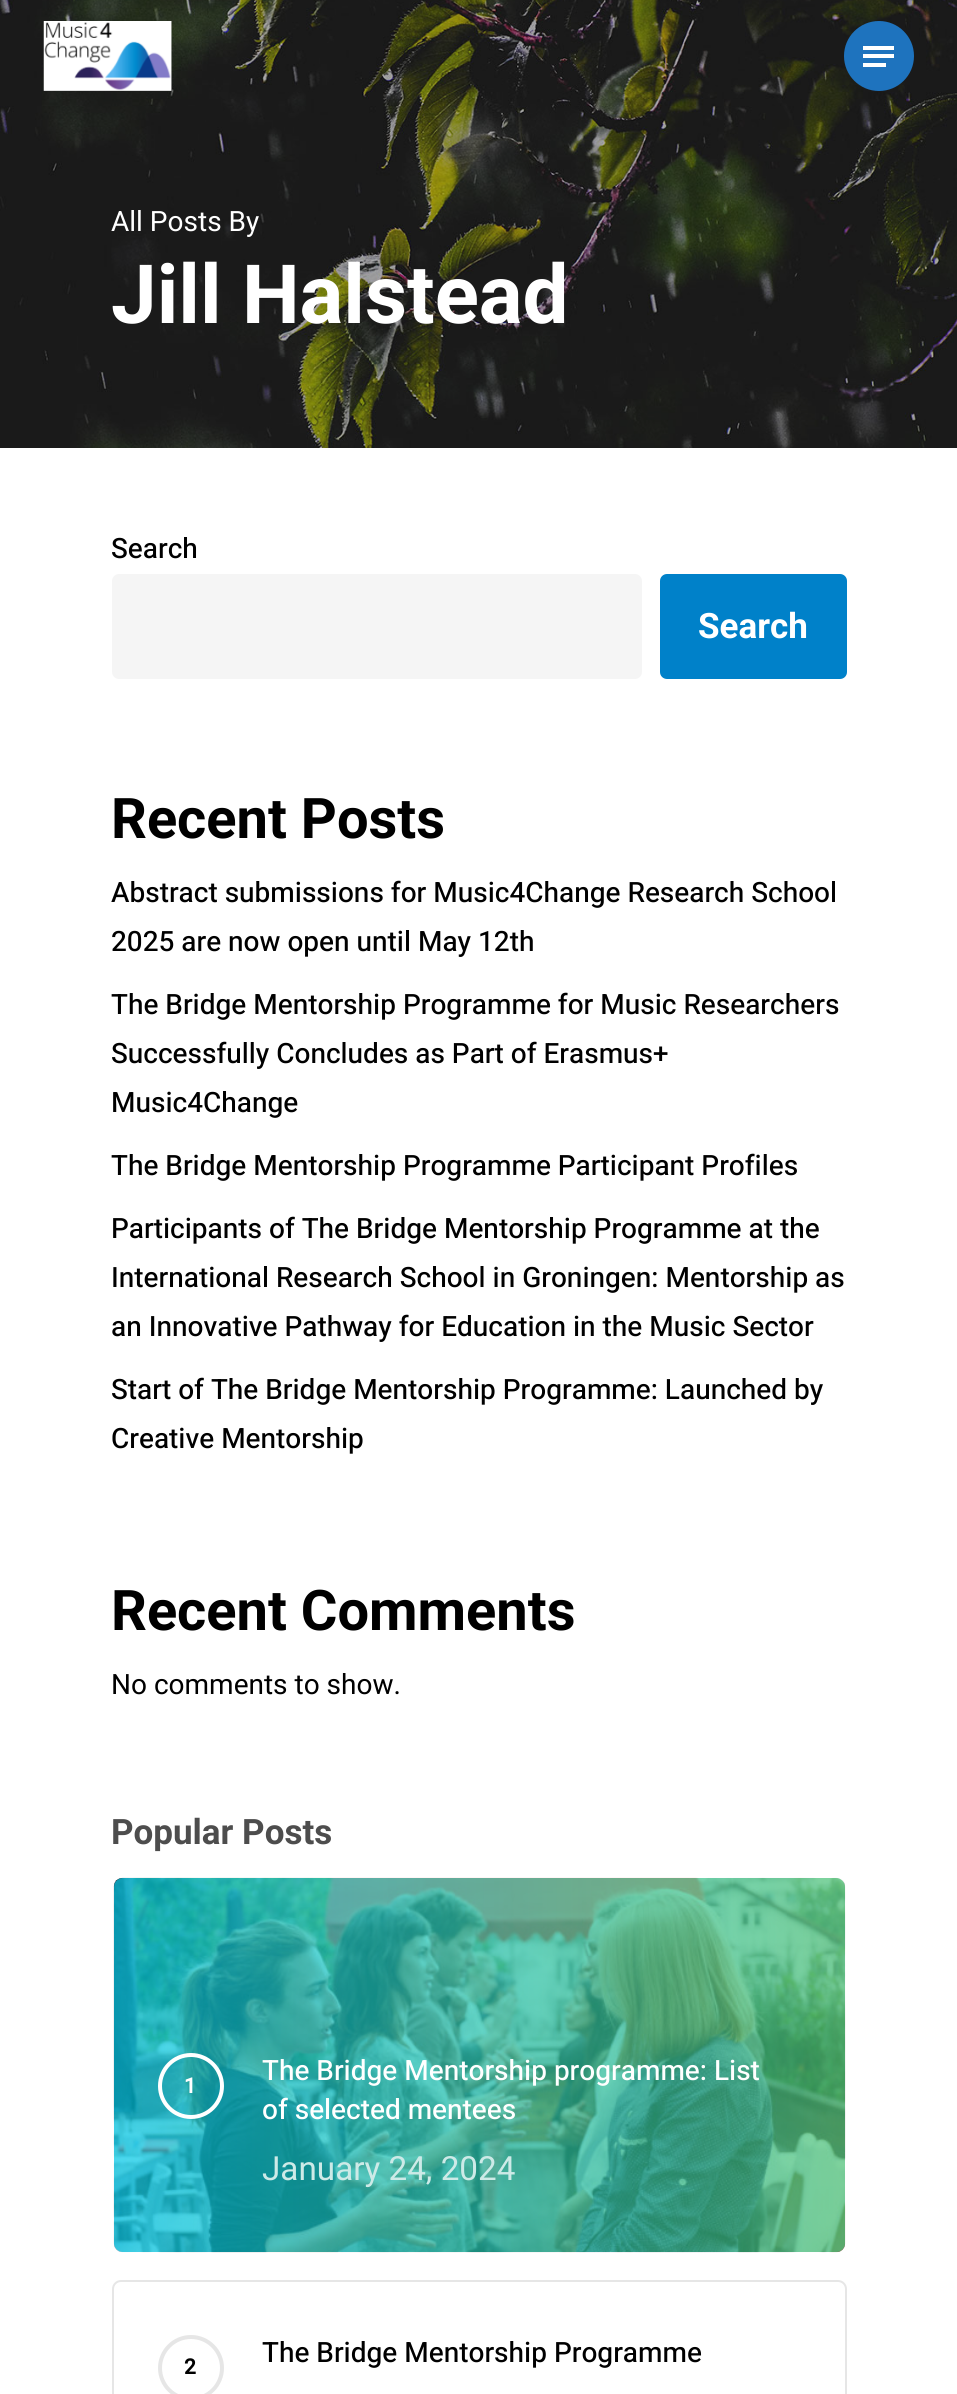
import math
import cairo


def use_color(cr, r, g, b):
  cr.set_source_rgb(r / 255, g / 255, b / 255)

def text(cr, x, y, s, family, size, color, bold=False, italic=False):
  cr.select_font_face(family, cairo.FONT_SLANT_ITALIC if italic else cairo.FONT_SLANT_NORMAL, cairo.FONT_WEIGHT_BOLD if bold else cairo.FONT_WEIGHT_NORMAL)
  cr.set_font_size(size)
  use_color(cr, *color)
  cr.move_to(x, y)
  cr.show_text(s)

def box(cr, x, y, w, h, *color):
  use_color(cr, *color)
  cr.rectangle(x, y, w, h)
  cr.fill()

def round_rect(cr, x, y, w, h, r):
  cr.new_sub_path()
  for i, (u, v) in enumerate([(x + w - r, y + h - r), (x + r, y + h - r), (x + r, y + r), (x + w - r, y + r)]):
    cr.arc(u, v, r, i * math.pi / 2, (i + 1) * math.pi / 2)
  cr.close_path()

def picture(cr, path, x, y, w, h):
  cr.save()
  cr.set_source_surface(cairo.ImageSurface.create_from_png(path), x, y)
  cr.rectangle(x, y, w, h)
  cr.fill()
  cr.restore()

def draw(cr):
  use_color(cr, 255, 255, 255)
  cr.paint()
  picture(cr, "img_02.png", 0, 0, 957, 448)
  picture(cr, "img_01.png", 43, 21, 129, 70)
  use_color(cr, 30, 115, 190)
  cr.arc(879, 56, 35, 0, 2 * math.pi)
  cr.fill()
  box(cr, 863, 46, 31, 4, 255, 255, 255)
  box(cr, 863, 63, 23, 4, 255, 255, 255)
  box(cr, 863, 54, 31, 4, 255, 255, 255)
  use_color(cr, 245, 245, 245)
  round_rect(cr, 112, 574, 530, 105, 7)
  cr.fill()
  use_color(cr, 0, 129, 201)
  round_rect(cr, 660, 574, 187, 105, 7)
  cr.fill()
  picture(cr, "img_03.png", 113, 1877, 733, 376)
  gradient = cairo.LinearGradient(114, 2065, 845, 2065)
  gradient.add_color_stop_rgba(0, 0, 0.792, 0.91, 0.7)
  gradient.add_color_stop_rgba(1, 0.282, 0.749, 0.447, 0.7)
  cr.set_source(gradient)
  round_rect(cr, 114, 1878, 731, 374, 9)
  cr.fill()
  cr.arc(191, 2086, 31, 0, 2 * math.pi)
  use_color(cr, 255, 255, 255)
  cr.set_line_width(4)
  cr.stroke()
  round_rect(cr, 113, 2281, 733, 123, 8)
  use_color(cr, 230, 230, 230)
  cr.set_line_width(2)
  cr.stroke()
  cr.arc(191, 2368, 31, 0, 2 * math.pi)
  cr.set_line_width(4)
  cr.stroke()
  text(cr, 111, 231, "All Posts By", "Heebo", 28, (255, 255, 255))
  text(cr, 111, 323, "Jill Halstead", "Roboto", 81.75, (255, 255, 255), bold=True)
  text(cr, 111, 558, "Search", "Heebo Medium", 28, (0, 0, 0))
  text(cr, 698, 638, "Search", "Roboto", 35, (255, 255, 255), bold=True)
  text(cr, 111, 838, "Recent Posts", "Roboto", 56, (0, 0, 0), bold=True)
  text(cr, 111, 902, "Abstract submissions for Music4Change Research School", "Heebo Medium", 28, (0, 0, 0))
  text(cr, 111, 951, "2025 are now open until May 12th", "Heebo Medium", 28, (0, 0, 0))
  text(cr, 111, 1014, "The Bridge Mentorship Programme for Music Researchers", "Heebo Medium", 28, (0, 0, 0))
  text(cr, 111, 1063, "Successfully Concludes as Part of Erasmus+", "Heebo Medium", 28, (0, 0, 0))
  text(cr, 111, 1112, "Music4Change", "Heebo Medium", 28, (0, 0, 0))
  text(cr, 111, 1175, "The Bridge Mentorship Programme Participant Profiles", "Heebo Medium", 28, (0, 0, 0))
  text(cr, 111, 1238, "Participants of The Bridge Mentorship Programme at the", "Heebo Medium", 28, (0, 0, 0))
  text(cr, 111, 1287, "International Research School in Groningen: Mentorship as", "Heebo Medium", 28, (0, 0, 0))
  text(cr, 111, 1336, "an Innovative Pathway for Education in the Music Sector", "Heebo Medium", 28, (0, 0, 0))
  text(cr, 111, 1399, "Start of The Bridge Mentorship Programme: Launched by", "Heebo Medium", 28, (0, 0, 0))
  text(cr, 111, 1448, "Creative Mentorship", "Heebo Medium", 28, (0, 0, 0))
  text(cr, 111, 1630, "Recent Comments", "Roboto", 56, (0, 0, 0), bold=True)
  text(cr, 111, 1694, "No comments to show.", "Heebo", 28, (0, 0, 0))
  text(cr, 111, 1844, "Popular Posts", "Roboto", 35, (77, 77, 77), bold=True)
  text(cr, 184, 2093, "1", "Heebo", 21, (255, 255, 255), bold=True)
  text(cr, 262, 2080, "The Bridge Mentorship programme: List", "Heebo Medium", 28, (255, 255, 255))
  text(cr, 262, 2119, "of selected mentees", "Heebo Medium", 28, (255, 255, 255))
  text(cr, 262, 2180, "January 24, 2024", "Heebo", 33.25, (205, 234, 231))
  text(cr, 184, 2374, "2", "Heebo", 21, (0, 0, 0), bold=True)
  text(cr, 262, 2362, "The Bridge Mentorship Programme", "Heebo Medium", 28, (0, 0, 0))


surface = cairo.ImageSurface(cairo.FORMAT_RGB24, 957, 2394)
cr = cairo.Context(surface)
options = cairo.FontOptions()
options.set_hint_metrics(cairo.HINT_METRICS_OFF)
options.set_hint_style(cairo.HINT_STYLE_NONE)
cr.set_font_options(options)
cr.set_miter_limit(4)
draw(cr)
surface.write_to_png("out.png")
